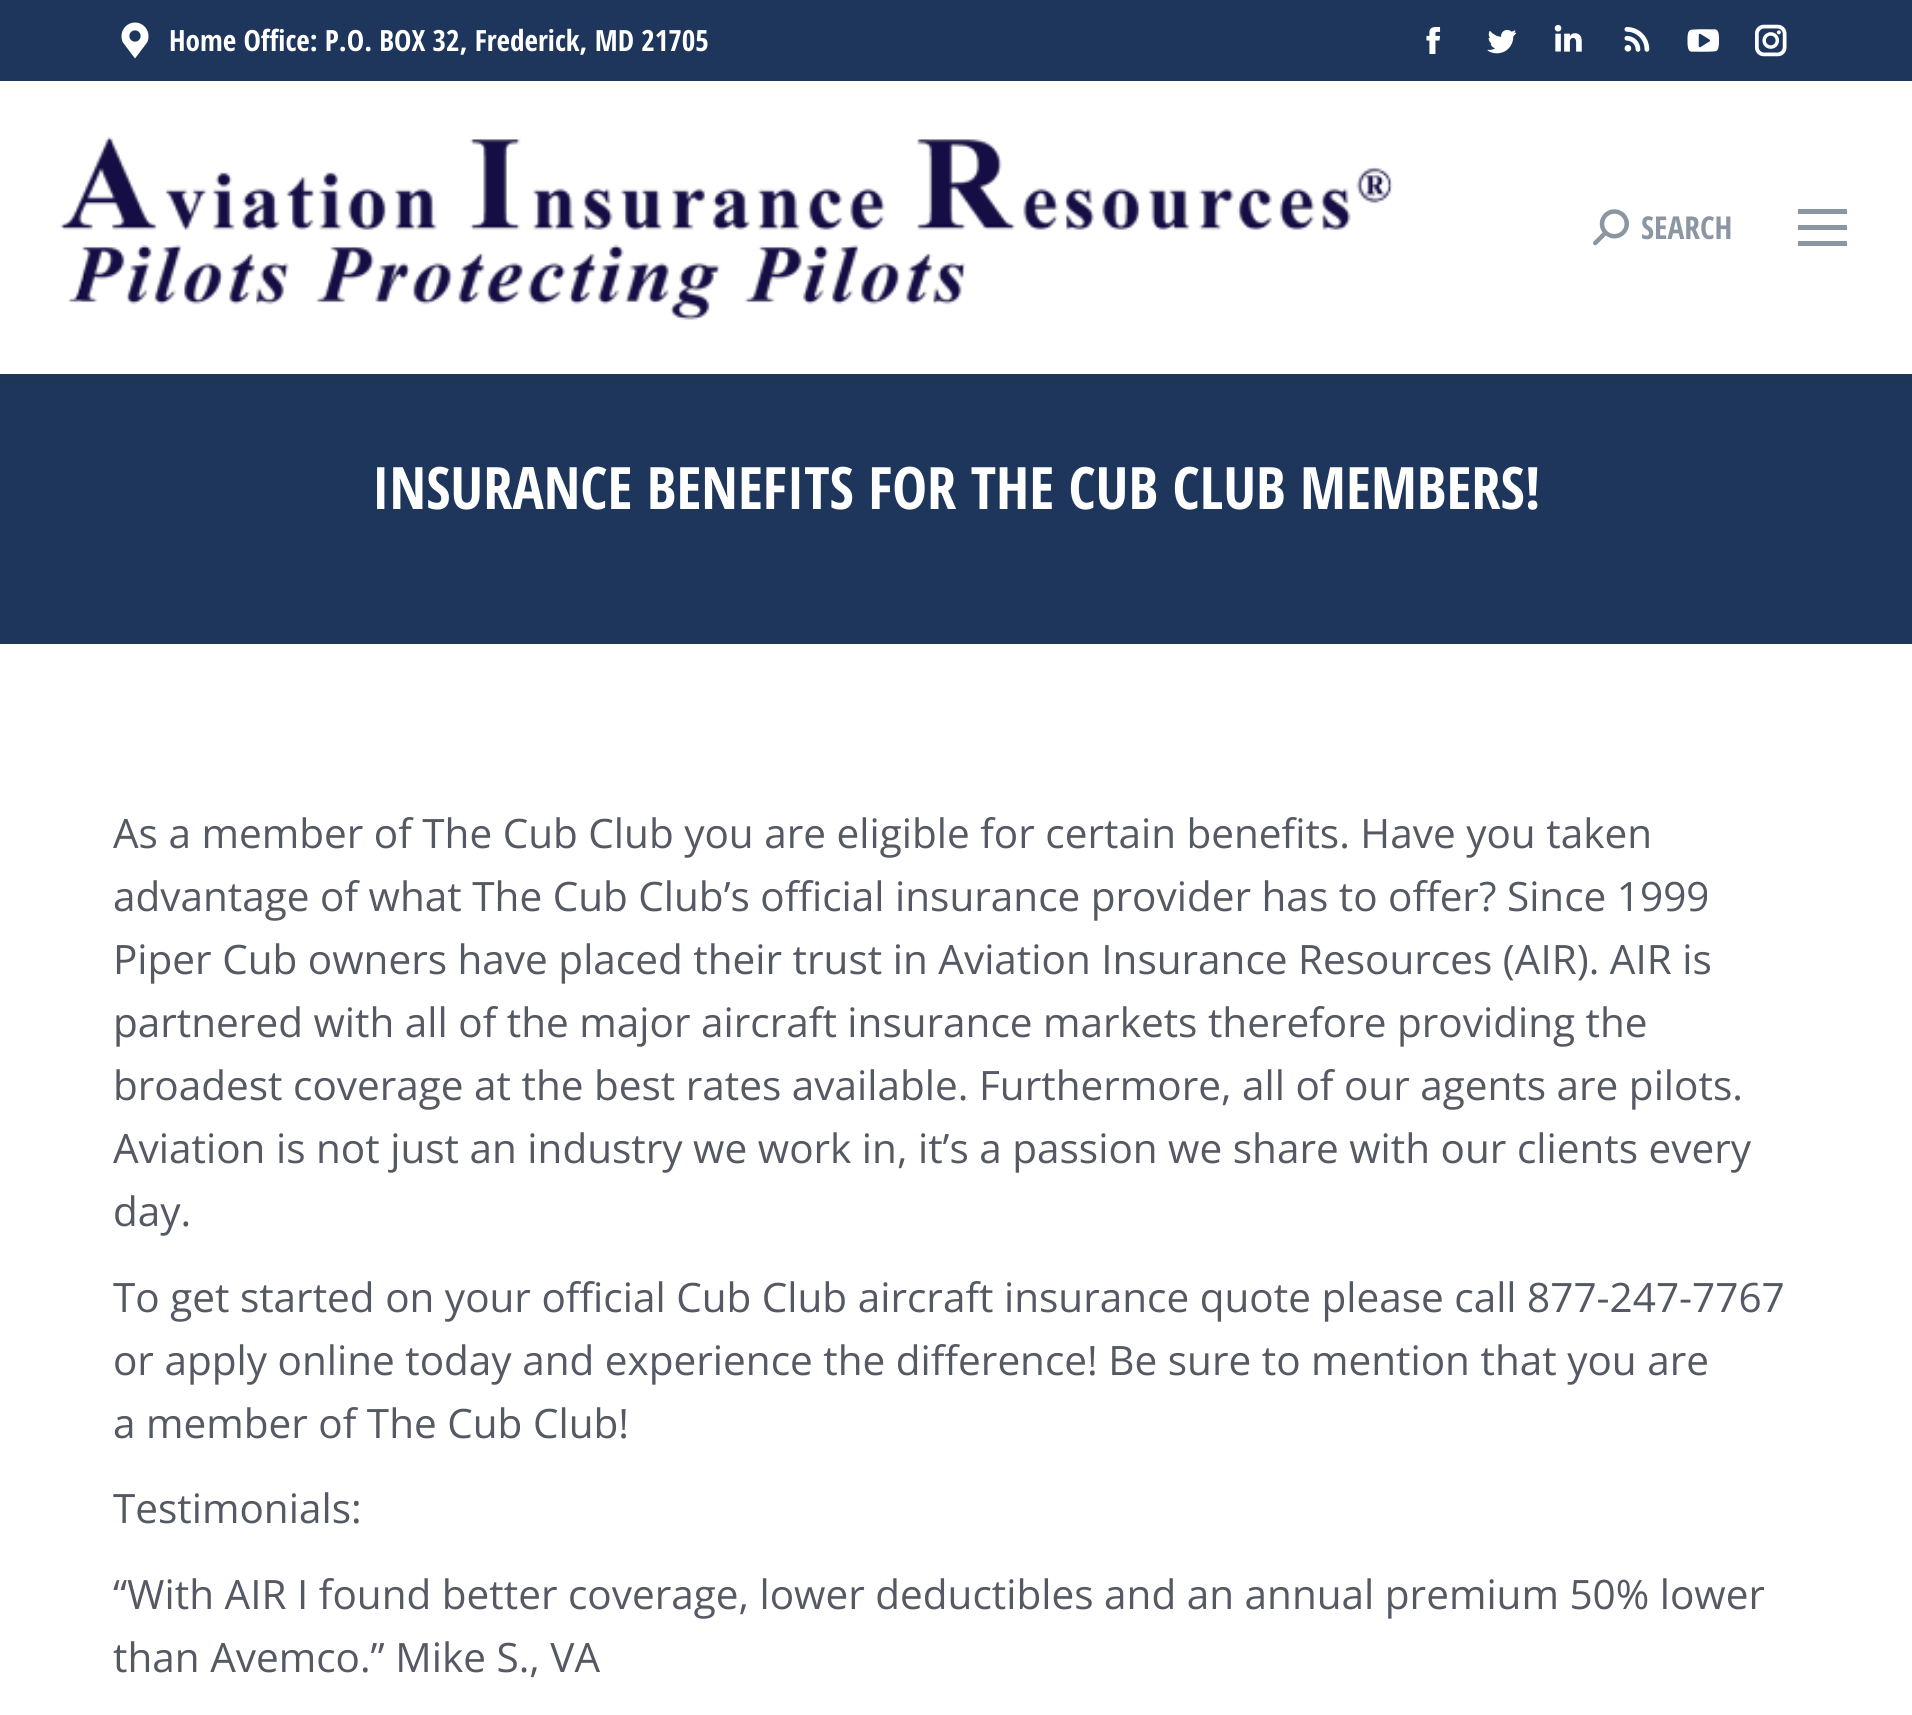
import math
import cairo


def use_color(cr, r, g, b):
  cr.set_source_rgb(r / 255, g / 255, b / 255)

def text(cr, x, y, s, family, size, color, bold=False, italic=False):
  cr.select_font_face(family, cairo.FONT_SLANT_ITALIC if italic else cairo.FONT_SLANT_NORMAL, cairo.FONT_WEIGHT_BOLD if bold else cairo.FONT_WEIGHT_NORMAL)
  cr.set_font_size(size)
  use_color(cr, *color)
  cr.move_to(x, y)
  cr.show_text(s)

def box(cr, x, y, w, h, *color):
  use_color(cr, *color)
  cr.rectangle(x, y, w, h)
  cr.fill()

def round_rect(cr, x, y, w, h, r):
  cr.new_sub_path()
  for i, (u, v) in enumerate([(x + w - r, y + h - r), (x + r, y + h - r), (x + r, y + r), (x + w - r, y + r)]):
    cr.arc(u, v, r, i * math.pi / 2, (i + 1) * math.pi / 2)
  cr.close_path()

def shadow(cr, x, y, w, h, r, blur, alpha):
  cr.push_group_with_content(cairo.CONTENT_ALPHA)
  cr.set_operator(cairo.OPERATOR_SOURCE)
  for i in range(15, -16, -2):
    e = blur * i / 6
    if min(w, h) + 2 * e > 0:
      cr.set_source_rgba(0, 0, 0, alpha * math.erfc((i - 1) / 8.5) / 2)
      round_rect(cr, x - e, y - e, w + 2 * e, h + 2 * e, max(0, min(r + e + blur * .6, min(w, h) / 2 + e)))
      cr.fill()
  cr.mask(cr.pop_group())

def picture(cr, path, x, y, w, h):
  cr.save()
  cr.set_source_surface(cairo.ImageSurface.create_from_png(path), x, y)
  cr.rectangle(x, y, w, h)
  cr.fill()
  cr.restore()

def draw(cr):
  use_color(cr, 255, 255, 255)
  cr.paint()
  box(cr, 0, 374, 1912, 270, 31, 54, 92)
  use_color(cr, 0, 0, 0)
  shadow(cr, -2, -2, 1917, 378, 0, 17, 0.07)
  box(cr, 0, 81, 1912, 293, 255, 255, 255)
  box(cr, 0, 0, 1912, 81, 31, 54, 92)
  picture(cr, "img_01.png", 121, 22, 28, 37)
  picture(cr, "img_02.png", 1426, 27, 15, 27)
  picture(cr, "img_03.png", 1487, 29, 30, 25)
  picture(cr, "img_04.png", 1554, 24, 28, 28)
  picture(cr, "img_05.png", 1624, 27, 26, 25)
  picture(cr, "img_06.png", 1687, 29, 32, 23)
  picture(cr, "img_07.png", 1755, 24, 32, 33)
  picture(cr, "img_08.png", 60, 136, 1333, 185)
  picture(cr, "img_09.png", 1593, 209, 36, 37)
  box(cr, 1798, 209, 49, 5, 140, 149, 162)
  box(cr, 1798, 225, 49, 5, 140, 149, 162)
  box(cr, 1798, 241, 49, 5, 140, 149, 162)
  text(cr, 169, 51, "Home Office: P.O. BOX 32, Frederick, MD 21705", "Open Sans Condensed", 29.25, (255, 255, 255), bold=True)
  text(cr, 1641, 239, "SEARCH", "Open Sans Condensed", 31.5, (140, 149, 162), bold=True)
  text(cr, 372, 509, "INSURANCE BENEFITS FOR THE CUB CLUB MEMBERS!", "Open Sans Condensed", 58.5, (255, 255, 255), bold=True)
  text(cr, 113, 848, "As a member of The Cub Club you are eligible for certain benefits. Have you taken", "Open Sans", 40.5, (84, 89, 99))
  text(cr, 113, 911, "advantage of what The Cub Club’s official insurance provider has to offer? Since 1999", "Open Sans", 40.5, (84, 89, 99))
  text(cr, 113, 974, "Piper Cub owners have placed their trust in Aviation Insurance Resources (AIR). AIR is", "Open Sans", 40.5, (84, 89, 99))
  text(cr, 113, 1037, "partnered with all of the major aircraft insurance markets therefore providing the", "Open Sans", 40.5, (84, 89, 99))
  text(cr, 113, 1100, "broadest coverage at the best rates available. Furthermore, all of our agents are pilots.", "Open Sans", 40.5, (84, 89, 99))
  text(cr, 113, 1163, "Aviation is not just an industry we work in, it’s a passion we share with our clients every", "Open Sans", 40.5, (84, 89, 99))
  text(cr, 113, 1226, "day.", "Open Sans", 40.5, (84, 89, 99))
  text(cr, 113, 1312, "To get started on your official Cub Club aircraft insurance quote please call 877-247-7767", "Open Sans", 40.5, (84, 89, 99))
  text(cr, 113, 1375, "or apply online today and experience the difference! Be sure to mention that you are", "Open Sans", 40.5, (84, 89, 99))
  text(cr, 113, 1438, "a member of The Cub Club!", "Open Sans", 40.5, (84, 89, 99))
  text(cr, 113, 1523, "Testimonials:", "Open Sans", 40.5, (84, 89, 99))
  text(cr, 113, 1609, "“With AIR I found better coverage, lower deductibles and an annual premium 50% lower", "Open Sans", 40.5, (84, 89, 99))
  text(cr, 113, 1672, "than Avemco.” Mike S., VA", "Open Sans", 40.5, (84, 89, 99))


surface = cairo.ImageSurface(cairo.FORMAT_RGB24, 1912, 1715)
cr = cairo.Context(surface)
options = cairo.FontOptions()
options.set_hint_metrics(cairo.HINT_METRICS_OFF)
options.set_hint_style(cairo.HINT_STYLE_NONE)
cr.set_font_options(options)
cr.set_miter_limit(4)
draw(cr)
surface.write_to_png("out.png")
